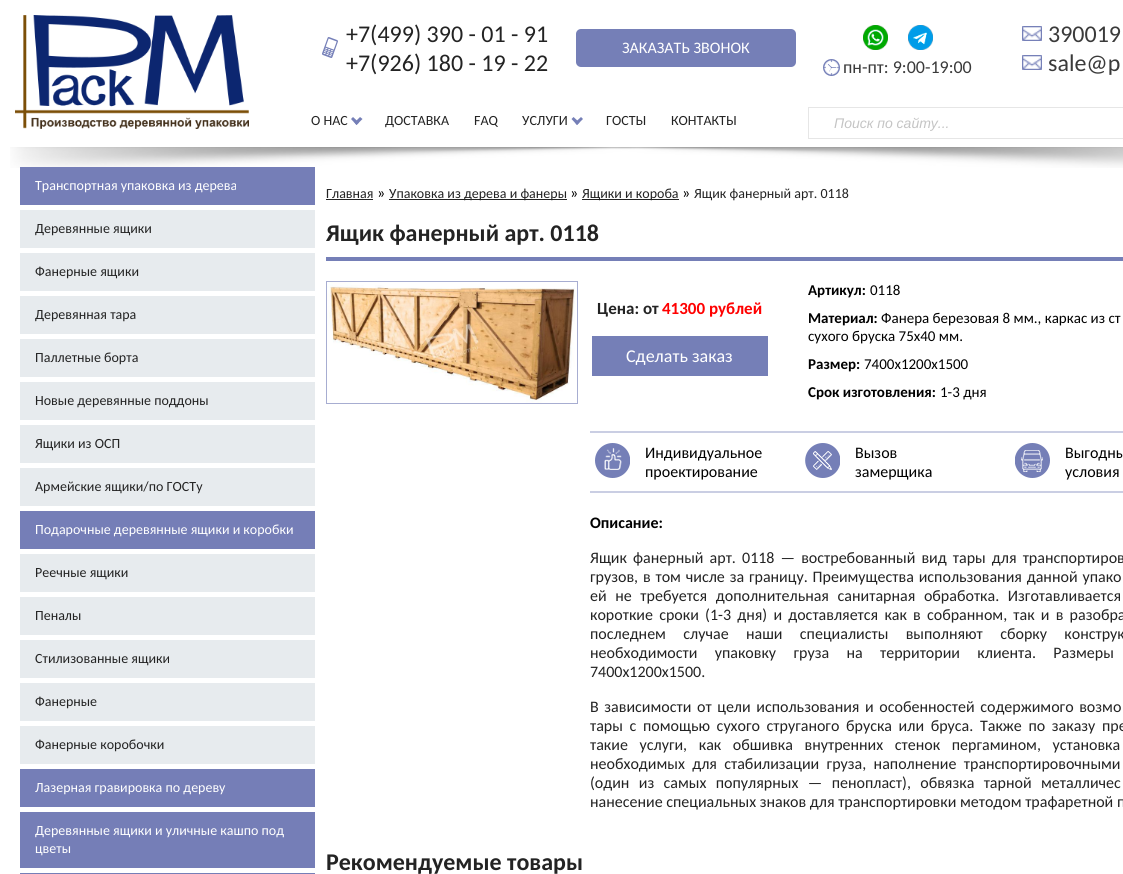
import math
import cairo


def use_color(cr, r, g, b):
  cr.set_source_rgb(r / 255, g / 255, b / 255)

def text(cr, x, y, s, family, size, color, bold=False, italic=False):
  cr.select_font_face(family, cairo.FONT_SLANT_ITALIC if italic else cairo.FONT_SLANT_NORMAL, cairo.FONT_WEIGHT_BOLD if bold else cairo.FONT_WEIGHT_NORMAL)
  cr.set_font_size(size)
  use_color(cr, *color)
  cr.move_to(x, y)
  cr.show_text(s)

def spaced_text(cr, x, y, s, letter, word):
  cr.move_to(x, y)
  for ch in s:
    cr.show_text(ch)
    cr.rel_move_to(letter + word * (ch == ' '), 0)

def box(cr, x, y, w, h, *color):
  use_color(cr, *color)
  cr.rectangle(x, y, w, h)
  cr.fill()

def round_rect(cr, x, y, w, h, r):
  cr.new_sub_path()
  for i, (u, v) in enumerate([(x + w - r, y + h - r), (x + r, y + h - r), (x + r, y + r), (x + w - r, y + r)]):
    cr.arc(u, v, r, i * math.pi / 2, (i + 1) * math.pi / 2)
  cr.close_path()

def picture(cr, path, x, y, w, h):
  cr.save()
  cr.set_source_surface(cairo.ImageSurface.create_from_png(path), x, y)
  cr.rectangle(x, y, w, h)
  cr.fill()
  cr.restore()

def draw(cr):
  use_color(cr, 255, 255, 255)
  cr.paint()
  picture(cr, "img_01.png", 15, 15, 234, 114)
  picture(cr, "img_02.png", 322, 37, 16, 21)
  use_color(cr, 117, 127, 183)
  round_rect(cr, 576, 29, 220, 38, 5)
  cr.fill()
  picture(cr, "img_03.png", 1022, 26, 20, 15)
  picture(cr, "img_03.png", 1022, 55, 20, 15)
  picture(cr, "img_04.png", 863, 25, 25, 25)
  picture(cr, "img_05.png", 908, 25, 25, 25)
  picture(cr, "img_06.png", 823, 59, 17, 17)
  cr.new_path()
  cr.move_to(360, 117)
  cr.line_to(362.5, 119)
  cr.line_to(356.5, 125)
  cr.line_to(354.5, 122.5)
  cr.close_path()
  cr.fill()
  cr.new_path()
  cr.move_to(353, 117)
  cr.line_to(359, 122.5)
  cr.line_to(356.5, 125)
  cr.line_to(351, 119)
  cr.close_path()
  cr.fill()
  cr.new_path()
  cr.move_to(581, 117)
  cr.line_to(583, 119)
  cr.line_to(577, 125)
  cr.line_to(575, 122.5)
  cr.close_path()
  cr.fill()
  cr.new_path()
  cr.move_to(573.5, 117)
  cr.line_to(579.5, 122.5)
  cr.line_to(577, 125)
  cr.line_to(571.5, 119)
  cr.close_path()
  cr.fill()
  cr.rectangle(808.5, 107.5, 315, 31)
  use_color(cr, 230, 230, 230)
  cr.set_line_width(1)
  cr.stroke()
  picture(cr, "img_07.png", 10, 147, 1113, 21)
  box(cr, 20, 167, 295, 38, 117, 126, 183)
  box(cr, 20, 210, 295, 38, 231, 235, 238)
  box(cr, 20, 253, 295, 38, 231, 235, 238)
  box(cr, 20, 296, 295, 38, 231, 235, 238)
  box(cr, 20, 339, 295, 38, 231, 235, 238)
  box(cr, 20, 382, 295, 38, 231, 235, 238)
  box(cr, 20, 425, 295, 38, 231, 235, 238)
  box(cr, 20, 468, 295, 38, 231, 235, 238)
  box(cr, 20, 511, 295, 38, 117, 126, 183)
  box(cr, 20, 554, 295, 38, 231, 235, 238)
  box(cr, 20, 597, 295, 38, 231, 235, 238)
  box(cr, 20, 640, 295, 38, 231, 235, 238)
  box(cr, 20, 683, 295, 38, 231, 235, 238)
  box(cr, 20, 726, 295, 38, 231, 235, 238)
  box(cr, 20, 769, 295, 38, 117, 126, 183)
  box(cr, 20, 812, 295, 56, 117, 126, 183)
  box(cr, 20, 873, 295, 1, 117, 126, 183)
  box(cr, 326, 199, 47, 1, 35, 35, 35)
  box(cr, 389, 199, 178, 1, 35, 35, 35)
  box(cr, 582, 199, 97, 1, 35, 35, 35)
  box(cr, 326, 257, 797, 4, 117, 127, 183)
  cr.rectangle(326.5, 281.5, 251, 122)
  use_color(cr, 167, 173, 209)
  cr.stroke()
  picture(cr, "img_08.png", 327, 282, 248, 121)
  box(cr, 592, 336, 176, 40, 117, 127, 183)
  box(cr, 590, 431, 533, 2, 202, 206, 227)
  box(cr, 590, 491, 533, 2, 202, 206, 227)
  picture(cr, "img_09.png", 595, 443, 35, 35)
  picture(cr, "img_10.png", 805, 443, 35, 35)
  picture(cr, "img_11.png", 1015, 443, 35, 35)
  text(cr, 346, 42, "+7(499) 390 - 01 - 91", "Carlito", 24, (35, 35, 35))
  text(cr, 346, 71, "+7(926) 180 - 19 - 22", "Carlito", 24, (35, 35, 35))
  text(cr, 622, 53, "ЗАКАЗАТЬ ЗВОНОК", "Carlito", 16, (255, 255, 255))
  text(cr, 1048, 42, "390019", "Carlito", 24, (58, 58, 58))
  text(cr, 1048, 71, "sale@p", "Carlito", 24, (58, 58, 58))
  text(cr, 843, 73, "пн-пт: 9:00-19:00", "Carlito", 18, (58, 58, 58))
  text(cr, 311, 125, "О НАС", "Carlito", 14, (35, 35, 35))
  text(cr, 385, 125, "ДОСТАВКА", "Carlito", 14, (35, 35, 35))
  text(cr, 474, 125, "FAQ", "Carlito", 14, (35, 35, 35))
  text(cr, 522, 125, "УСЛУГИ", "Carlito", 14, (35, 35, 35))
  text(cr, 606, 125, "ГОСТЫ", "Carlito", 14, (35, 35, 35))
  text(cr, 671, 125, "КОНТАКТЫ", "Carlito", 14, (35, 35, 35))
  text(cr, 834, 128, "Поиск по сайту...", "Liberation Sans", 14, (196, 196, 196), italic=True)
  text(cr, 35, 190, "Транспортная упаковка из дерева", "Carlito", 14, (255, 255, 255))
  text(cr, 35, 233, "Деревянные ящики", "Carlito", 14, (35, 35, 35))
  text(cr, 35, 276, "Фанерные ящики", "Carlito", 14, (35, 35, 35))
  text(cr, 35, 319, "Деревянная тара", "Carlito", 14, (35, 35, 35))
  text(cr, 35, 362, "Паллетные борта", "Carlito", 14, (35, 35, 35))
  text(cr, 35, 405, "Новые деревянные поддоны", "Carlito", 14, (35, 35, 35))
  text(cr, 35, 448, "Ящики из ОСП", "Carlito", 14, (35, 35, 35))
  text(cr, 35, 491, "Армейские ящики/по ГОСТу", "Carlito", 14, (35, 35, 35))
  text(cr, 35, 534, "Подарочные деревянные ящики и коробки", "Carlito", 14, (255, 255, 255))
  text(cr, 35, 577, "Реечные ящики", "Carlito", 14, (35, 35, 35))
  text(cr, 35, 620, "Пеналы", "Carlito", 14, (35, 35, 35))
  text(cr, 35, 663, "Стилизованные ящики", "Carlito", 14, (35, 35, 35))
  text(cr, 35, 706, "Фанерные", "Carlito", 14, (35, 35, 35))
  text(cr, 35, 749, "Фанерные коробочки", "Carlito", 14, (35, 35, 35))
  text(cr, 35, 792, "Лазерная гравировка по дереву", "Carlito", 14, (255, 255, 255))
  text(cr, 35, 835, "Деревянные ящики и уличные кашпо под", "Carlito", 14, (255, 255, 255))
  text(cr, 35, 853, "цветы", "Carlito", 14, (255, 255, 255))
  text(cr, 326, 198, "Главная", "Carlito", 14, (35, 35, 35))
  text(cr, 377, 198, "»", "Carlito", 16, (0, 0, 0))
  text(cr, 389, 198, "Упаковка из дерева и фанеры", "Carlito", 14, (35, 35, 35))
  text(cr, 570, 198, "»", "Carlito", 16, (0, 0, 0))
  text(cr, 582, 198, "Ящики и короба", "Carlito", 14, (35, 35, 35))
  text(cr, 682, 198, "»", "Carlito", 16, (0, 0, 0))
  text(cr, 694, 198, "Ящик фанерный арт. 0118", "Carlito", 14, (35, 35, 35))
  text(cr, 326, 241, "Ящик фанерный арт. 0118", "Carlito", 24, (35, 35, 35), bold=True)
  text(cr, 597, 314, "Цена: от", "Carlito", 17, (35, 35, 35), bold=True)
  text(cr, 662, 314, "41300 рублей", "Carlito", 17, (255, 0, 0), bold=True)
  text(cr, 626, 362, "Сделать заказ", "Carlito", 18, (255, 255, 255))
  text(cr, 808, 295, "Артикул:", "Carlito", 15, (0, 0, 0), bold=True)
  text(cr, 870, 295, "0118", "Carlito", 15, (0, 0, 0))
  text(cr, 808, 323, "Материал:", "Carlito", 15, (0, 0, 0), bold=True)
  text(cr, 881, 323, "Фанера березовая 8 мм., каркас из ст", "Carlito", 15, (0, 0, 0))
  text(cr, 808, 341, "сухого бруска 75х40 мм.", "Carlito", 15, (0, 0, 0))
  text(cr, 808, 369, "Размер:", "Carlito", 15, (0, 0, 0), bold=True)
  text(cr, 864, 369, "7400х1200х1500", "Carlito", 15, (0, 0, 0))
  text(cr, 808, 397, "Срок изготовления:", "Carlito", 15, (0, 0, 0), bold=True)
  text(cr, 940, 397, "1-3 дня", "Carlito", 15, (0, 0, 0))
  text(cr, 645, 458, "Индивидуальное", "Carlito", 16, (0, 0, 0))
  text(cr, 645, 477, "проектирование", "Carlito", 16, (0, 0, 0))
  text(cr, 855, 458, "Вызов", "Carlito", 16, (0, 0, 0))
  text(cr, 855, 477, "замерщика", "Carlito", 16, (0, 0, 0))
  text(cr, 1065, 458, "Выгодны", "Carlito", 16, (0, 0, 0))
  text(cr, 1065, 477, "условия", "Carlito", 16, (0, 0, 0))
  text(cr, 590, 528, "Описание:", "Carlito", 16, (0, 0, 0), bold=True)
  cr.select_font_face("Carlito")
  use_color(cr, 35, 35, 35)
  spaced_text(cr, 590, 563, "Ящик фанерный арт. 0118 — востребованный вид тары для транспортиров", 0, 2.5)
  spaced_text(cr, 590, 582, "грузов, в том числе за границу. Преимущества использования данной упако", 0, 1.25)
  spaced_text(cr, 590, 601, "ей не требуется дополнительная санитарная обработка. Изготавливается", 0, 5)
  spaced_text(cr, 590, 620, "короткие сроки (1-3 дня) и доставляется как в собранном, так и в разобра", 0, 2.6)
  spaced_text(cr, 590, 639, "последнем случае наши специалисты выполняют сборку конструк", 0, 13.75)
  spaced_text(cr, 590, 658, "необходимости упаковку груза на территории клиента. Размеры", 0, 13.75)
  text(cr, 590, 677, "7400х1200х1500.", "Carlito", 16, (35, 35, 35))
  spaced_text(cr, 590, 712, "В зависимости от цели использования и особенностей содержимого возмо", 0, 2)
  spaced_text(cr, 590, 731, "тары с помощью сухого струганого бруска или бруса. Также по заказу пре", 0, 3)
  spaced_text(cr, 590, 750, "такие услуги, как обшивка внутренних стенок пергамином, установка", 0, 8)
  spaced_text(cr, 590, 769, "необходимых для стабилизации груза, наполнение транспортировочными", 0, 3.75)
  spaced_text(cr, 590, 788, "(один из самых популярных — пенопласт), обвязка тарной металличес", 0, 5.75)
  text(cr, 590, 807, "нанесение специальных знаков для транспортировки методом трафаретной п", "Carlito", 16, (35, 35, 35))
  text(cr, 326, 870, "Рекомендуемые товары", "Carlito", 24, (35, 35, 35), bold=True)


surface = cairo.ImageSurface(cairo.FORMAT_RGB24, 1123, 874)
cr = cairo.Context(surface)
options = cairo.FontOptions()
options.set_hint_metrics(cairo.HINT_METRICS_OFF)
options.set_hint_style(cairo.HINT_STYLE_NONE)
cr.set_font_options(options)
cr.set_miter_limit(4)
draw(cr)
surface.write_to_png("out.png")
